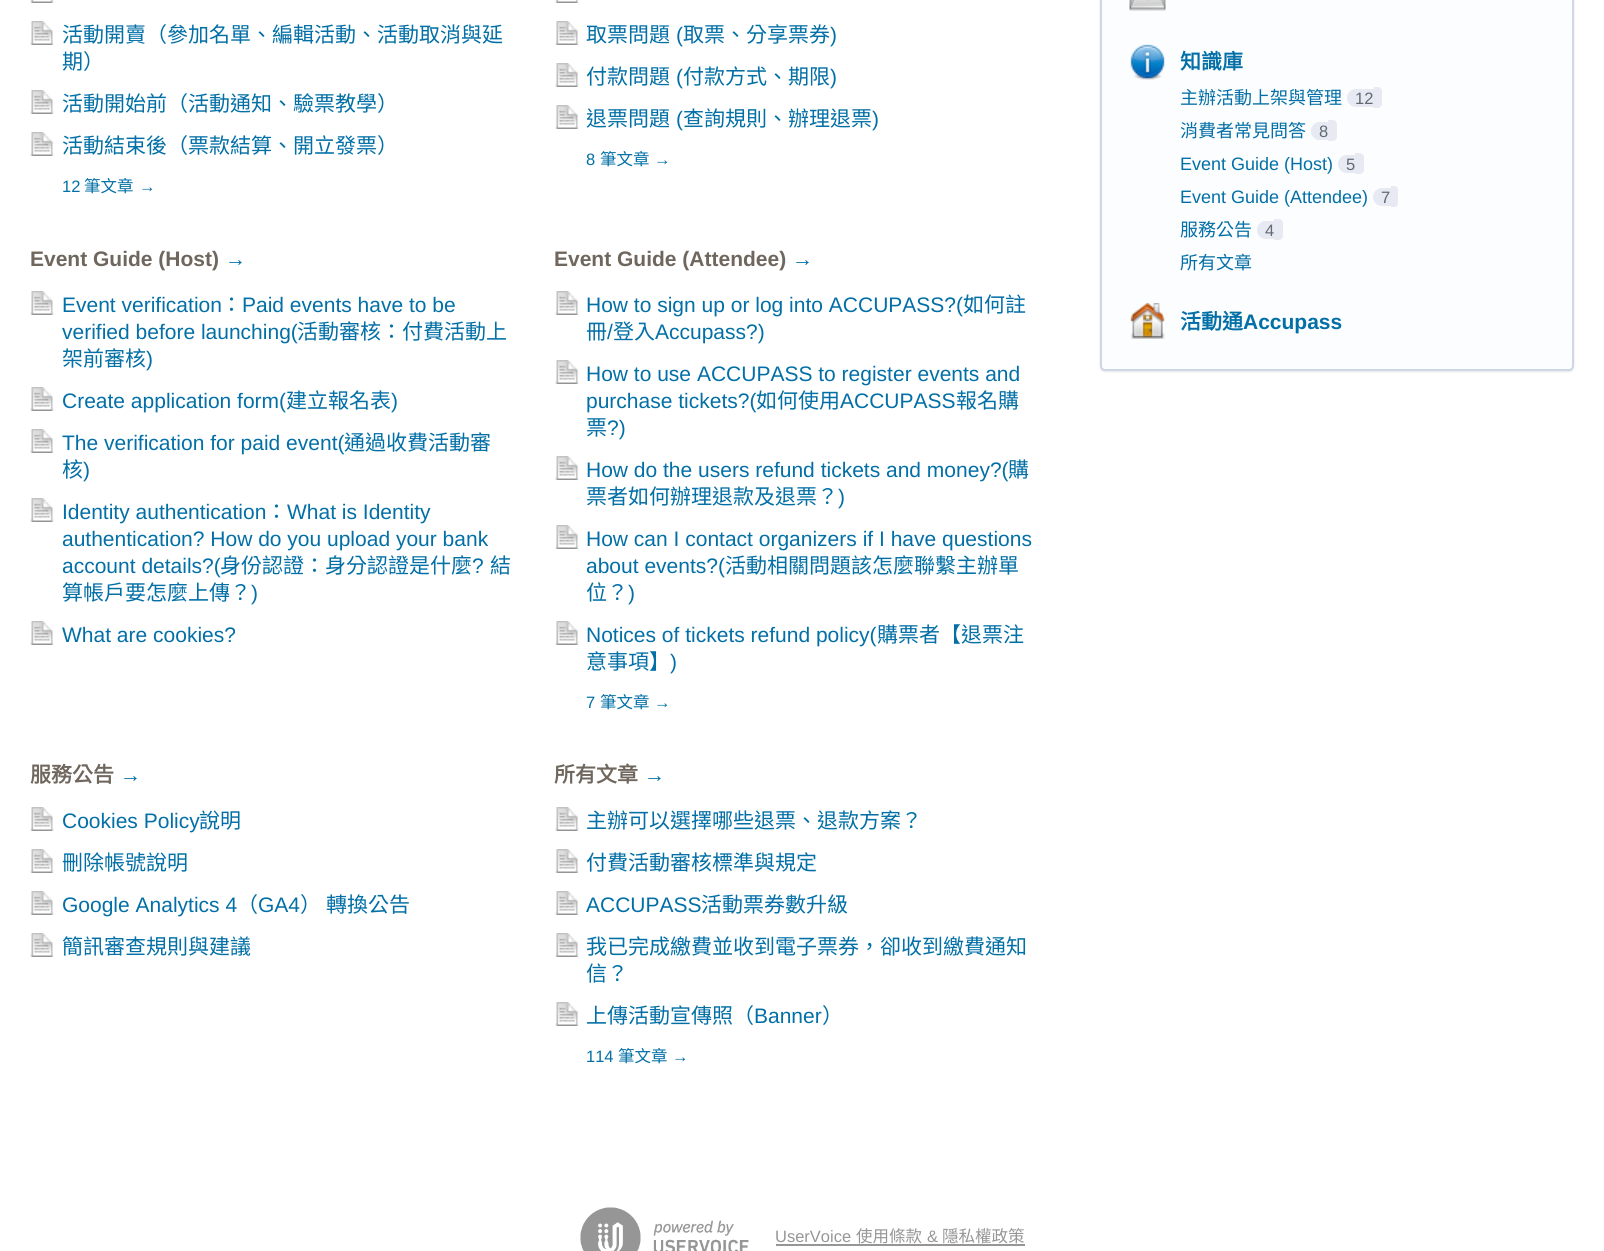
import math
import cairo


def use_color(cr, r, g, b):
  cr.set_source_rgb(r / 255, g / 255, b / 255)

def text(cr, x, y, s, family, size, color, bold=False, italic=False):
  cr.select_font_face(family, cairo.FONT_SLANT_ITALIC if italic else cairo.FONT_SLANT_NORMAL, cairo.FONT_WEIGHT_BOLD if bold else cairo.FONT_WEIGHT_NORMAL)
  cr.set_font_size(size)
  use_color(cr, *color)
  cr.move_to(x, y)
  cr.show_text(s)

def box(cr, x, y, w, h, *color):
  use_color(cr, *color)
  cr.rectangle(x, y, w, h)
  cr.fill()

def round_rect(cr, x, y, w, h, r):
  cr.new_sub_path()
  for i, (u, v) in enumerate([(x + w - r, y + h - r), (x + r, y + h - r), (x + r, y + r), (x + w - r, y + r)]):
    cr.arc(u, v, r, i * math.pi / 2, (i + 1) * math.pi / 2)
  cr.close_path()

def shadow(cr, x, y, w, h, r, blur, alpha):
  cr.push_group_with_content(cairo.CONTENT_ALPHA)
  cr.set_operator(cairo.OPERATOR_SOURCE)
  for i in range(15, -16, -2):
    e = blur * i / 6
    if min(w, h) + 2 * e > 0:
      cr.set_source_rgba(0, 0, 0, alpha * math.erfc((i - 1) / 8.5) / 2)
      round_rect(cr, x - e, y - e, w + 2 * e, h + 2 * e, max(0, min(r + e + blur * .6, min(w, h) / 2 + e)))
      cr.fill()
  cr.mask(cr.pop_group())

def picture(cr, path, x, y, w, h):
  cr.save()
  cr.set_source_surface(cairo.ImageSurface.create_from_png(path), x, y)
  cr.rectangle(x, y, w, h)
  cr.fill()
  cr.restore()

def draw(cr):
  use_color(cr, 255, 255, 255)
  cr.paint()
  picture(cr, "img_01.png", 30, 0, 24, 3)
  picture(cr, "img_02.png", 30, 21, 24, 24)
  picture(cr, "img_02.png", 30, 90, 24, 24)
  picture(cr, "img_02.png", 30, 132, 24, 24)
  picture(cr, "img_01.png", 555, 0, 24, 3)
  picture(cr, "img_02.png", 555, 21, 24, 24)
  picture(cr, "img_02.png", 555, 63, 24, 24)
  picture(cr, "img_02.png", 555, 105, 24, 24)
  picture(cr, "img_02.png", 30, 291, 24, 24)
  picture(cr, "img_02.png", 30, 387, 24, 24)
  picture(cr, "img_02.png", 30, 429, 24, 24)
  picture(cr, "img_02.png", 30, 498, 24, 24)
  picture(cr, "img_02.png", 30, 621, 24, 24)
  picture(cr, "img_02.png", 555, 291, 24, 24)
  picture(cr, "img_02.png", 555, 360, 24, 24)
  picture(cr, "img_02.png", 555, 456, 24, 24)
  picture(cr, "img_02.png", 555, 525, 24, 24)
  picture(cr, "img_02.png", 555, 621, 24, 24)
  picture(cr, "img_02.png", 30, 807, 24, 24)
  picture(cr, "img_02.png", 30, 849, 24, 24)
  picture(cr, "img_02.png", 30, 891, 24, 24)
  picture(cr, "img_02.png", 30, 933, 24, 24)
  picture(cr, "img_02.png", 555, 807, 24, 24)
  picture(cr, "img_02.png", 555, 849, 24, 24)
  picture(cr, "img_02.png", 555, 891, 24, 24)
  picture(cr, "img_02.png", 555, 933, 24, 24)
  picture(cr, "img_02.png", 555, 1002, 24, 24)
  use_color(cr, 0, 0, 0)
  shadow(cr, 1100, -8, 474, 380, 5, 1, 0.1)
  use_color(cr, 252, 253, 255)
  round_rect(cr, 1101, -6, 472, 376, 4)
  cr.fill_preserve()
  use_color(cr, 207, 215, 230)
  cr.stroke()
  picture(cr, "img_03.png", 1129, 0, 37, 11)
  picture(cr, "img_04.png", 1130, 44, 35, 36)
  use_color(cr, 231, 234, 242)
  cr.new_path()
  cr.move_to(1356, 89)
  cr.line_to(1374, 89)
  cr.line_to(1374, 107)
  cr.line_to(1356, 107)
  cr.curve_to(1351, 107, 1347, 103, 1347, 98)
  cr.curve_to(1347, 93, 1351, 89, 1356, 89)
  cr.close_path()
  cr.fill()
  cr.new_path()
  cr.move_to(1374, 87)
  cr.line_to(1378, 87)
  cr.curve_to(1380, 87, 1382, 89, 1382, 91)
  cr.line_to(1382, 104)
  cr.curve_to(1382, 106, 1380, 108, 1378, 108)
  cr.line_to(1374, 108)
  cr.close_path()
  cr.fill()
  cr.new_path()
  cr.move_to(1319.5, 122)
  cr.line_to(1328, 122)
  cr.line_to(1328, 140)
  cr.line_to(1319.5, 140)
  cr.curve_to(1315, 140, 1311, 136, 1311, 131.5)
  cr.line_to(1311, 130.5)
  cr.curve_to(1311, 126, 1315, 122, 1319.5, 122)
  cr.close_path()
  cr.fill()
  cr.new_path()
  cr.move_to(1328, 120)
  cr.line_to(1332.5, 120)
  cr.curve_to(1335, 120, 1337, 122, 1337, 124.5)
  cr.line_to(1337, 136.5)
  cr.curve_to(1337, 139, 1335, 141, 1332.5, 141)
  cr.line_to(1328, 141)
  cr.close_path()
  cr.fill()
  cr.new_path()
  cr.move_to(1346.5, 155)
  cr.line_to(1355, 155)
  cr.line_to(1355, 173)
  cr.line_to(1346.5, 173)
  cr.curve_to(1342, 173, 1338, 169, 1338, 164.5)
  cr.line_to(1338, 163.5)
  cr.curve_to(1338, 159, 1342, 155, 1346.5, 155)
  cr.close_path()
  cr.fill()
  cr.new_path()
  cr.move_to(1355, 153)
  cr.line_to(1359.5, 153)
  cr.curve_to(1362, 153, 1364, 155, 1364, 157.5)
  cr.line_to(1364, 169.5)
  cr.curve_to(1364, 172, 1362, 174, 1359.5, 174)
  cr.line_to(1355, 174)
  cr.close_path()
  cr.fill()
  cr.new_path()
  cr.move_to(1382, 188)
  cr.line_to(1391, 188)
  cr.line_to(1391, 206)
  cr.line_to(1382, 206)
  cr.curve_to(1377, 206, 1373, 202, 1373, 197)
  cr.curve_to(1373, 192, 1377, 188, 1382, 188)
  cr.close_path()
  cr.fill()
  cr.new_path()
  cr.move_to(1391, 186)
  cr.line_to(1394.5, 186)
  cr.curve_to(1396.5, 186, 1398, 187.5, 1398, 189.5)
  cr.line_to(1398, 203.5)
  cr.curve_to(1398, 205.5, 1396.5, 207, 1394.5, 207)
  cr.line_to(1391, 207)
  cr.close_path()
  cr.fill()
  cr.new_path()
  cr.move_to(1265.5, 221)
  cr.line_to(1274, 221)
  cr.line_to(1274, 239)
  cr.line_to(1265.5, 239)
  cr.curve_to(1261, 239, 1257, 235, 1257, 230.5)
  cr.line_to(1257, 229.5)
  cr.curve_to(1257, 225, 1261, 221, 1265.5, 221)
  cr.close_path()
  cr.fill()
  cr.new_path()
  cr.move_to(1274, 219)
  cr.line_to(1278.5, 219)
  cr.curve_to(1281, 219, 1283, 221, 1283, 223.5)
  cr.line_to(1283, 235.5)
  cr.curve_to(1283, 238, 1281, 240, 1278.5, 240)
  cr.line_to(1274, 240)
  cr.close_path()
  cr.fill()
  picture(cr, "img_05.png", 1130, 303, 35, 36)
  picture(cr, "img_06.png", 580, 1207, 169, 44)
  box(cr, 776, 1244, 249, 2, 150, 150, 150)
  text(cr, 62, 42, "活動開賣（參加名單、編輯活動、活動取消與延", "Noto Sans CJK TC", 21, (2, 111, 166))
  text(cr, 62, 69, "期）", "Noto Sans CJK TC", 21, (2, 111, 166))
  text(cr, 62, 111, "活動開始前（活動通知、驗票教學）", "Noto Sans CJK TC", 21, (2, 111, 166))
  text(cr, 62, 153, "活動結束後（票款結算、開立發票）", "Noto Sans CJK TC", 21, (2, 111, 166))
  text(cr, 62, 192, "12", "Liberation Sans", 16.5, (2, 111, 166))
  text(cr, 84, 192, "筆文章", "Noto Sans CJK TC", 16.5, (2, 111, 166))
  text(cr, 139, 192, "→", "Liberation Sans", 16.5, (2, 111, 166))
  text(cr, 586, 42, "取票問題", "Noto Sans CJK TC", 21, (2, 111, 166))
  text(cr, 676, 42, "(", "Liberation Sans", 21, (2, 111, 166))
  text(cr, 683, 42, "取票、分享票券", "Noto Sans CJK TC", 21, (2, 111, 166))
  text(cr, 830, 42, ")", "Liberation Sans", 21, (2, 111, 166))
  text(cr, 586, 84, "付款問題", "Noto Sans CJK TC", 21, (2, 111, 166))
  text(cr, 676, 84, "(", "Liberation Sans", 21, (2, 111, 166))
  text(cr, 683, 84, "付款方式、期限", "Noto Sans CJK TC", 21, (2, 111, 166))
  text(cr, 830, 84, ")", "Liberation Sans", 21, (2, 111, 166))
  text(cr, 586, 126, "退票問題", "Noto Sans CJK TC", 21, (2, 111, 166))
  text(cr, 676, 126, "(", "Liberation Sans", 21, (2, 111, 166))
  text(cr, 683, 126, "查詢規則、辦理退票", "Noto Sans CJK TC", 21, (2, 111, 166))
  text(cr, 872, 126, ")", "Liberation Sans", 21, (2, 111, 166))
  text(cr, 586, 165, "8", "Liberation Sans", 16.5, (2, 111, 166))
  text(cr, 600, 165, "筆文章", "Noto Sans CJK TC", 16.5, (2, 111, 166))
  text(cr, 654, 165, "→", "Liberation Sans", 16.5, (2, 111, 166))
  text(cr, 30, 266, "Event Guide (Host)", "Liberation Sans", 21, (111, 103, 94), bold=True)
  text(cr, 225, 266, "→", "Liberation Sans", 21, (2, 111, 166), bold=True)
  text(cr, 62, 312, "Event verification", "Liberation Sans", 21, (2, 111, 166))
  text(cr, 221, 312, "：", "Noto Sans CJK TC", 21, (2, 111, 166))
  text(cr, 242, 312, "Paid events have to be", "Liberation Sans", 21, (2, 111, 166))
  text(cr, 62, 339, "verified before launching(", "Liberation Sans", 21, (2, 111, 166))
  text(cr, 297, 339, "活動審核：付費活動上", "Noto Sans CJK TC", 21, (2, 111, 166))
  text(cr, 62, 366, "架前審核", "Noto Sans CJK TC", 21, (2, 111, 166))
  text(cr, 146, 366, ")", "Liberation Sans", 21, (2, 111, 166))
  text(cr, 62, 408, "Create application form(", "Liberation Sans", 21, (2, 111, 166))
  text(cr, 286, 408, "建立報名表", "Noto Sans CJK TC", 21, (2, 111, 166))
  text(cr, 391, 408, ")", "Liberation Sans", 21, (2, 111, 166))
  text(cr, 62, 450, "The verification for paid event(", "Liberation Sans", 21, (2, 111, 166))
  text(cr, 344, 450, "通過收費活動審", "Noto Sans CJK TC", 21, (2, 111, 166))
  text(cr, 62, 477, "核", "Noto Sans CJK TC", 21, (2, 111, 166))
  text(cr, 83, 477, ")", "Liberation Sans", 21, (2, 111, 166))
  text(cr, 62, 519, "Identity authentication", "Liberation Sans", 21, (2, 111, 166))
  text(cr, 266, 519, "：", "Noto Sans CJK TC", 21, (2, 111, 166))
  text(cr, 287, 519, "What is Identity", "Liberation Sans", 21, (2, 111, 166))
  text(cr, 62, 546, "authentication? How do you upload your bank", "Liberation Sans", 21, (2, 111, 166))
  text(cr, 62, 573, "account details?(", "Liberation Sans", 21, (2, 111, 166))
  text(cr, 220, 573, "身份認證：身分認證是什麼", "Noto Sans CJK TC", 21, (2, 111, 166))
  text(cr, 472, 573, "?", "Liberation Sans", 21, (2, 111, 166))
  text(cr, 490, 573, "結", "Noto Sans CJK TC", 21, (2, 111, 166))
  text(cr, 62, 600, "算帳戶要怎麼上傳？", "Noto Sans CJK TC", 21, (2, 111, 166))
  text(cr, 251, 600, ")", "Liberation Sans", 21, (2, 111, 166))
  text(cr, 62, 642, "What are cookies?", "Liberation Sans", 21, (2, 111, 166))
  text(cr, 554, 266, "Event Guide (Attendee)", "Liberation Sans", 21, (111, 103, 94), bold=True)
  text(cr, 792, 266, "→", "Liberation Sans", 21, (2, 111, 166), bold=True)
  text(cr, 586, 312, "How to sign up or log into ACCUPASS?(", "Liberation Sans", 21, (2, 111, 166))
  text(cr, 963, 312, "如何註", "Noto Sans CJK TC", 21, (2, 111, 166))
  text(cr, 586, 339, "冊", "Noto Sans CJK TC", 21, (2, 111, 166))
  text(cr, 607, 339, "/", "Liberation Sans", 21, (2, 111, 166))
  text(cr, 613, 339, "登入", "Noto Sans CJK TC", 21, (2, 111, 166))
  text(cr, 655, 339, "Accupass?)", "Liberation Sans", 21, (2, 111, 166))
  text(cr, 586, 381, "How to use ACCUPASS to register events and", "Liberation Sans", 21, (2, 111, 166))
  text(cr, 586, 408, "purchase tickets?(", "Liberation Sans", 21, (2, 111, 166))
  text(cr, 756, 408, "如何使用", "Noto Sans CJK TC", 21, (2, 111, 166))
  text(cr, 840, 408, "ACCUPASS", "Liberation Sans", 21, (2, 111, 166))
  text(cr, 956, 408, "報名購", "Noto Sans CJK TC", 21, (2, 111, 166))
  text(cr, 586, 435, "票", "Noto Sans CJK TC", 21, (2, 111, 166))
  text(cr, 607, 435, "?)", "Liberation Sans", 21, (2, 111, 166))
  text(cr, 586, 477, "How do the users refund tickets and money?(", "Liberation Sans", 21, (2, 111, 166))
  text(cr, 1008, 477, "購", "Noto Sans CJK TC", 21, (2, 111, 166))
  text(cr, 586, 504, "票者如何辦理退款及退票？", "Noto Sans CJK TC", 21, (2, 111, 166))
  text(cr, 838, 504, ")", "Liberation Sans", 21, (2, 111, 166))
  text(cr, 586, 546, "How can I contact organizers if I have questions", "Liberation Sans", 21, (2, 111, 166))
  text(cr, 586, 573, "about events?(", "Liberation Sans", 21, (2, 111, 166))
  text(cr, 725, 573, "活動相關問題該怎麼聯繫主辦單", "Noto Sans CJK TC", 21, (2, 111, 166))
  text(cr, 586, 600, "位？", "Noto Sans CJK TC", 21, (2, 111, 166))
  text(cr, 628, 600, ")", "Liberation Sans", 21, (2, 111, 166))
  text(cr, 586, 642, "Notices of tickets refund policy(", "Liberation Sans", 21, (2, 111, 166))
  text(cr, 877, 642, "購票者【退票注", "Noto Sans CJK TC", 21, (2, 111, 166))
  text(cr, 586, 669, "意事項】", "Noto Sans CJK TC", 21, (2, 111, 166))
  text(cr, 670, 669, ")", "Liberation Sans", 21, (2, 111, 166))
  text(cr, 586, 708, "7", "Liberation Sans", 16.5, (2, 111, 166))
  text(cr, 600, 708, "筆文章", "Noto Sans CJK TC", 16.5, (2, 111, 166))
  text(cr, 654, 708, "→", "Liberation Sans", 16.5, (2, 111, 166))
  text(cr, 30, 782, "服務公告", "Noto Sans CJK TC", 21, (111, 103, 94), bold=True)
  text(cr, 120, 782, "→", "Liberation Sans", 21, (2, 111, 166), bold=True)
  text(cr, 62, 828, "Cookies Policy", "Liberation Sans", 21, (2, 111, 166))
  text(cr, 199, 828, "說明", "Noto Sans CJK TC", 21, (2, 111, 166))
  text(cr, 62, 870, "刪除帳號說明", "Noto Sans CJK TC", 21, (2, 111, 166))
  text(cr, 62, 912, "Google Analytics 4", "Liberation Sans", 21, (2, 111, 166))
  text(cr, 237, 912, "（", "Noto Sans CJK TC", 21, (2, 111, 166))
  text(cr, 258, 912, "GA4", "Liberation Sans", 21, (2, 111, 166))
  text(cr, 300, 912, "）", "Noto Sans CJK TC", 21, (2, 111, 166))
  text(cr, 326, 912, "轉換公告", "Noto Sans CJK TC", 21, (2, 111, 166))
  text(cr, 62, 954, "簡訊審查規則與建議", "Noto Sans CJK TC", 21, (2, 111, 166))
  text(cr, 554, 782, "所有文章", "Noto Sans CJK TC", 21, (111, 103, 94), bold=True)
  text(cr, 644, 782, "→", "Liberation Sans", 21, (2, 111, 166), bold=True)
  text(cr, 586, 828, "主辦可以選擇哪些退票、退款方案？", "Noto Sans CJK TC", 21, (2, 111, 166))
  text(cr, 586, 870, "付費活動審核標準與規定", "Noto Sans CJK TC", 21, (2, 111, 166))
  text(cr, 586, 912, "ACCUPASS", "Liberation Sans", 21, (2, 111, 166))
  text(cr, 701, 912, "活動票券數升級", "Noto Sans CJK TC", 21, (2, 111, 166))
  text(cr, 586, 954, "我已完成繳費並收到電子票券，卻收到繳費通知", "Noto Sans CJK TC", 21, (2, 111, 166))
  text(cr, 586, 981, "信？", "Noto Sans CJK TC", 21, (2, 111, 166))
  text(cr, 586, 1023, "上傳活動宣傳照（", "Noto Sans CJK TC", 21, (2, 111, 166))
  text(cr, 754, 1023, "Banner", "Liberation Sans", 21, (2, 111, 166))
  text(cr, 822, 1023, "）", "Noto Sans CJK TC", 21, (2, 111, 166))
  text(cr, 586, 1062, "114", "Liberation Sans", 16.5, (2, 111, 166))
  text(cr, 618, 1062, "筆文章", "Noto Sans CJK TC", 16.5, (2, 111, 166))
  text(cr, 672, 1062, "→", "Liberation Sans", 16.5, (2, 111, 166))
  text(cr, 1180, 69, "知識庫", "Noto Sans CJK TC", 21, (2, 111, 166), bold=True)
  text(cr, 1180, 104, "主辦活動上架與管理", "Noto Sans CJK TC", 18, (2, 111, 166))
  text(cr, 1355, 104, "12", "Liberation Sans", 16.5, (97, 105, 115))
  text(cr, 1180, 137, "消費者常見問答", "Noto Sans CJK TC", 18, (2, 111, 166))
  text(cr, 1319, 137, "8", "Liberation Sans", 16.5, (97, 105, 115))
  text(cr, 1180, 170, "Event Guide (Host)", "Liberation Sans", 18, (2, 111, 166))
  text(cr, 1346, 170, "5", "Liberation Sans", 16.5, (97, 105, 115))
  text(cr, 1180, 203, "Event Guide (Attendee)", "Liberation Sans", 18, (2, 111, 166))
  text(cr, 1381, 203, "7", "Liberation Sans", 16.5, (97, 105, 115))
  text(cr, 1180, 236, "服務公告", "Noto Sans CJK TC", 18, (2, 111, 166))
  text(cr, 1265, 236, "4", "Liberation Sans", 16.5, (97, 105, 115))
  text(cr, 1180, 269, "所有文章", "Noto Sans CJK TC", 18, (2, 111, 166))
  text(cr, 1180, 329, "活動通", "Noto Sans CJK TC", 21, (2, 111, 166), bold=True)
  text(cr, 1243, 329, "Accupass", "Liberation Sans", 21, (2, 111, 166), bold=True)
  text(cr, 775, 1242, "UserVoice", "Liberation Sans", 16.5, (150, 150, 150))
  text(cr, 856, 1242, "使用條款", "Noto Sans CJK TC", 16.5, (150, 150, 150))
  text(cr, 927, 1242, "&", "Liberation Sans", 16.5, (150, 150, 150))
  text(cr, 942, 1242, "隱私權政策", "Noto Sans CJK TC", 16.5, (150, 150, 150))


surface = cairo.ImageSurface(cairo.FORMAT_RGB24, 1604, 1251)
cr = cairo.Context(surface)
options = cairo.FontOptions()
options.set_hint_metrics(cairo.HINT_METRICS_OFF)
options.set_hint_style(cairo.HINT_STYLE_NONE)
cr.set_font_options(options)
cr.set_miter_limit(4)
draw(cr)
surface.write_to_png("out.png")
